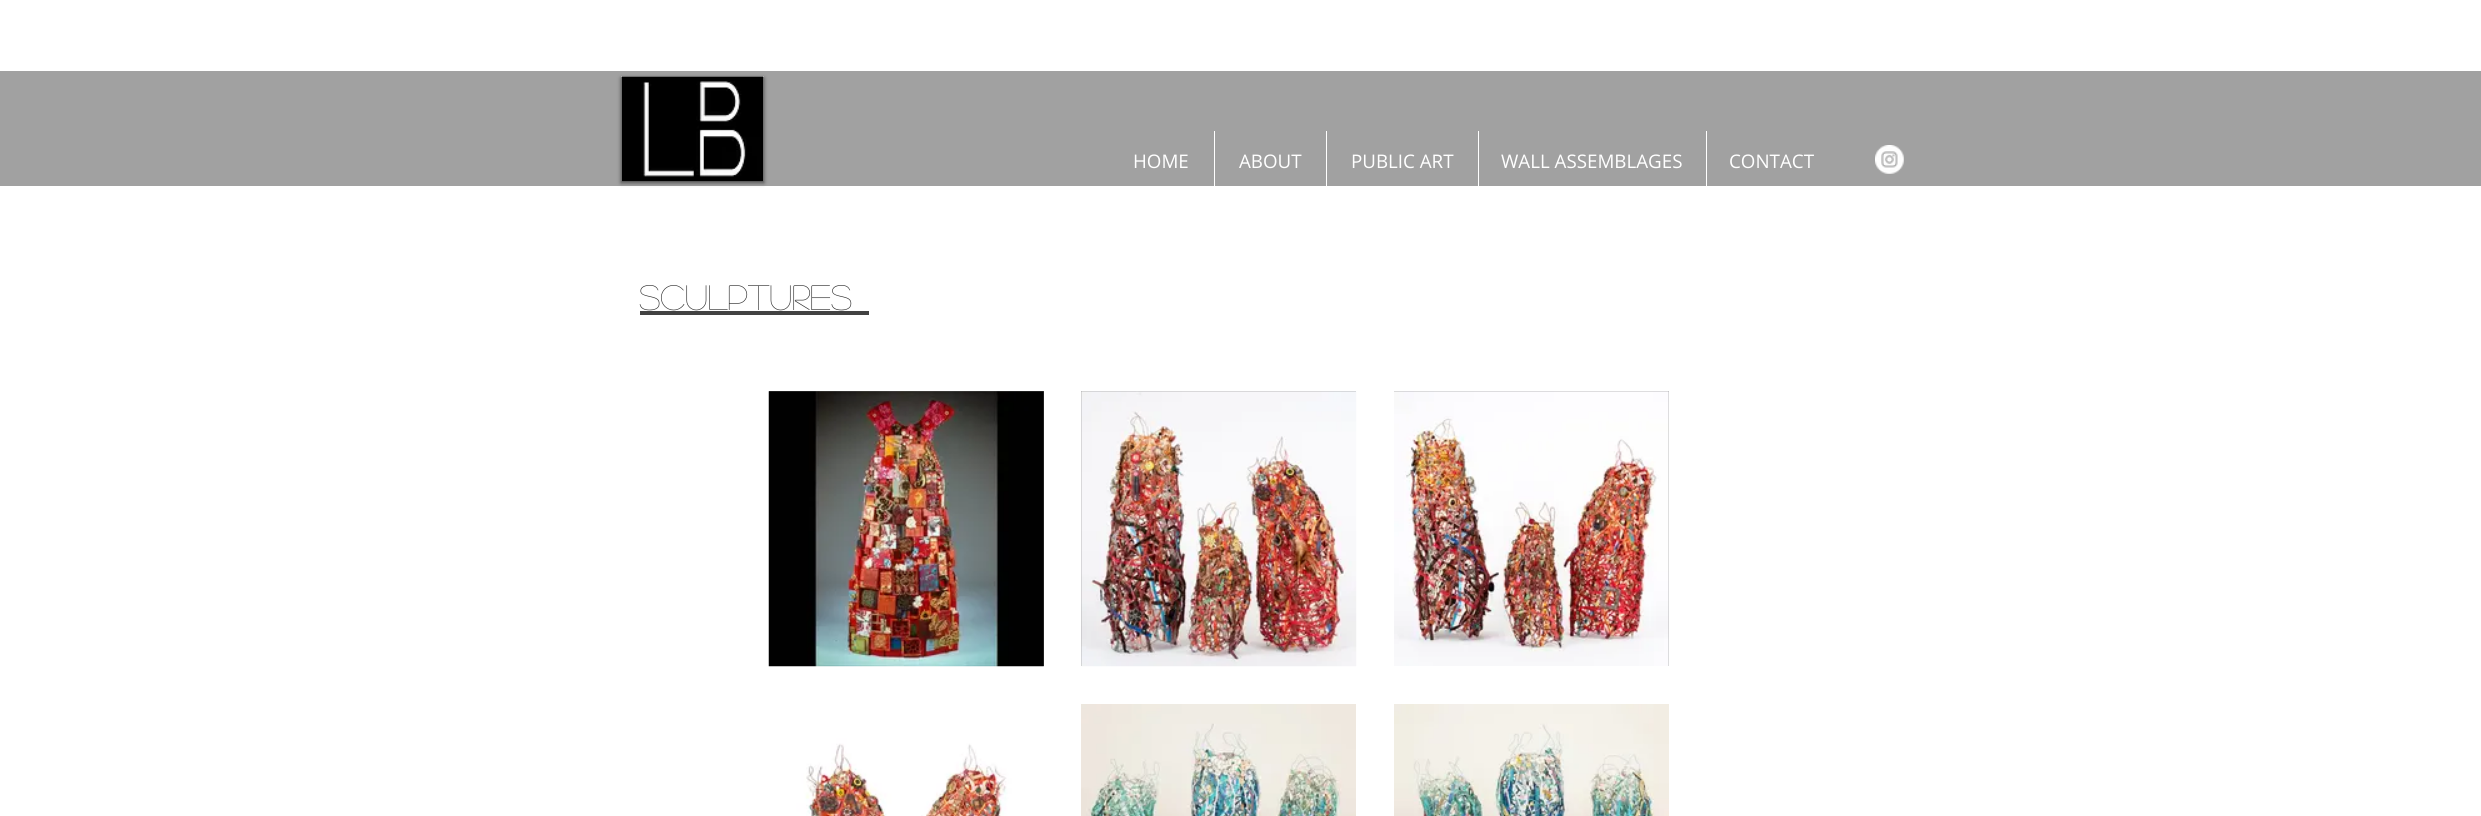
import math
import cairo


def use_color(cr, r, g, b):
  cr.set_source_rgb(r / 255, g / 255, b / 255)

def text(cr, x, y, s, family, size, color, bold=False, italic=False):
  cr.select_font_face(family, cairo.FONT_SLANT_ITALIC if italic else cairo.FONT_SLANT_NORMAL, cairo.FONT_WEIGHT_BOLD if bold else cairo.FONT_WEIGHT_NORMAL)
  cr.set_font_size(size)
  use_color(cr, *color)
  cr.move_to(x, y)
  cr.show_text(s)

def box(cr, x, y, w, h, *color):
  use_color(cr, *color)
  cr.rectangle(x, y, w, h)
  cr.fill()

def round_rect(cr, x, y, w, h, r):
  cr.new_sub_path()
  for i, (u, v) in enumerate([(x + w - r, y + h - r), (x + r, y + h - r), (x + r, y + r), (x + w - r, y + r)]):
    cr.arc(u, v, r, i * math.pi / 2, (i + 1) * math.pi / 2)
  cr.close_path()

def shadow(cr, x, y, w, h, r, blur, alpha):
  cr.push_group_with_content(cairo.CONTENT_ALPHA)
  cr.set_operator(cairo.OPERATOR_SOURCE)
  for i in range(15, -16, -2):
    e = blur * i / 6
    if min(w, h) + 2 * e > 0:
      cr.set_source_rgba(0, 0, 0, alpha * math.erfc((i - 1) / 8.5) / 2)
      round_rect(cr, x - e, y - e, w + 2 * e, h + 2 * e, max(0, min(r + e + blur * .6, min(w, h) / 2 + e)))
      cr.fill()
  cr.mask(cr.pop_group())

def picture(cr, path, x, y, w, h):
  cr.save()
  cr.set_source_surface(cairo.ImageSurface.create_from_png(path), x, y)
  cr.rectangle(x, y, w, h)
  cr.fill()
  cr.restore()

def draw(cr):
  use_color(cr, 255, 255, 255)
  cr.paint()
  box(cr, 0, 71, 2481, 115, 161, 161, 161)
  use_color(cr, 0, 0, 0)
  shadow(cr, 621, 78, 143, 105, 0, 2, 0.5)
  box(cr, 621, 76, 143, 105, 255, 255, 255)
  picture(cr, "img_01.png", 621, 76, 143, 106)
  box(cr, 1214, 131, 1, 58, 255, 255, 255)
  box(cr, 1326, 131, 1, 58, 255, 255, 255)
  box(cr, 1478, 131, 1, 58, 255, 255, 255)
  box(cr, 1706, 131, 1, 58, 255, 255, 255)
  picture(cr, "img_02.png", 1875, 145, 29, 29)
  box(cr, 640, 311, 229, 4, 66, 66, 66)
  box(cr, 769, 391, 275, 275, 127, 126, 126)
  picture(cr, "img_03.png", 768, 391, 276, 276)
  box(cr, 1081, 391, 275, 275, 127, 126, 126)
  picture(cr, "img_04.png", 1081, 391, 276, 276)
  box(cr, 1394, 391, 275, 275, 127, 126, 126)
  picture(cr, "img_05.png", 1394, 391, 275, 275)
  picture(cr, "img_06.png", 796, 704, 220, 112)
  picture(cr, "img_07.png", 1081, 704, 275, 112)
  picture(cr, "img_08.png", 1394, 704, 275, 112)
  text(cr, 1133, 168, "HOME", "Open Sans", 18.75, (255, 255, 255))
  text(cr, 1239, 168, "ABOUT", "Open Sans", 18.75, (255, 255, 255))
  text(cr, 1351, 168, "PUBLIC ART", "Open Sans", 18.75, (255, 255, 255))
  text(cr, 1501, 168, "WALL ASSEMBLAGES", "Open Sans", 18.75, (255, 255, 255))
  text(cr, 1729, 168, "CONTACT", "Open Sans", 18.75, (255, 255, 255))
  text(cr, 639, 310, "Sculptures", "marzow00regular", 35, (41, 41, 41))


surface = cairo.ImageSurface(cairo.FORMAT_RGB24, 2481, 816)
cr = cairo.Context(surface)
options = cairo.FontOptions()
options.set_hint_metrics(cairo.HINT_METRICS_OFF)
options.set_hint_style(cairo.HINT_STYLE_NONE)
cr.set_font_options(options)
cr.set_miter_limit(4)
draw(cr)
surface.write_to_png("out.png")
